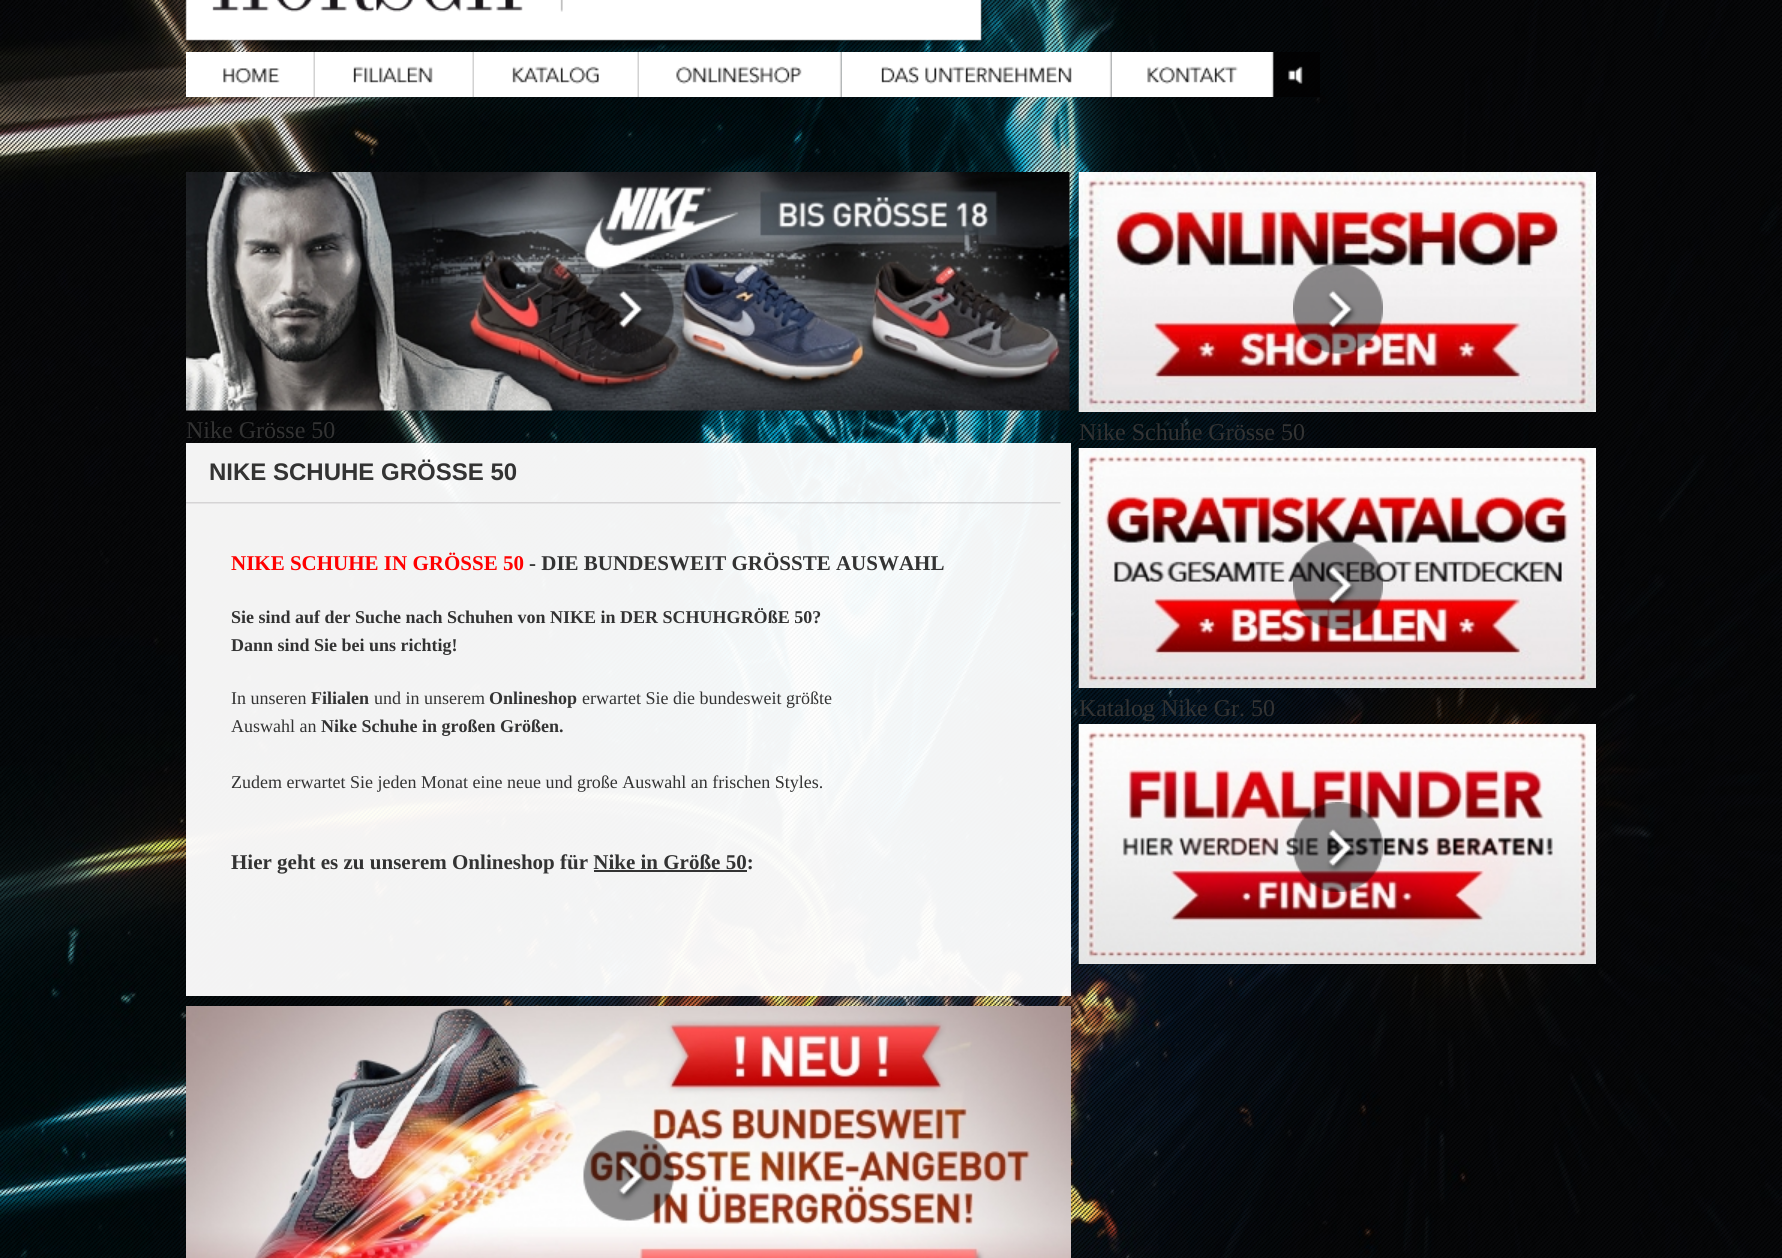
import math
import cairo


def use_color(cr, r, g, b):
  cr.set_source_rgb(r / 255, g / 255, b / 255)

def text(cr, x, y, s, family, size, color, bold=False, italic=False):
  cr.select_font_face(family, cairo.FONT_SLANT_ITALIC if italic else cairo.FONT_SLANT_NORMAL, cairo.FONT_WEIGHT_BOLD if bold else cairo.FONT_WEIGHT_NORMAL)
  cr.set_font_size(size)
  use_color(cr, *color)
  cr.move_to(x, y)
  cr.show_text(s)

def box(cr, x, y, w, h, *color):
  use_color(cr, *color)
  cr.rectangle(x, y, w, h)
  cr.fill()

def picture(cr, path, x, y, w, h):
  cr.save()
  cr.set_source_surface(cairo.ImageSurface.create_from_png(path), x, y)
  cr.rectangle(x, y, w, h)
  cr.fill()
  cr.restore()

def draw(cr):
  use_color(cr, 255, 255, 255)
  cr.paint()
  picture(cr, "img_01.png", 0, 0, 1782, 1258)
  picture(cr, "img_02.png", 0, 0, 1782, 1258)
  picture(cr, "img_03.png", 185, 0, 803, 49)
  picture(cr, "img_04.png", 186, 52, 129, 45)
  picture(cr, "img_05.png", 315, 52, 159, 45)
  picture(cr, "img_06.png", 474, 52, 165, 45)
  picture(cr, "img_07.png", 639, 52, 203, 45)
  picture(cr, "img_08.png", 841, 52, 271, 45)
  picture(cr, "img_09.png", 1111, 52, 163, 45)
  picture(cr, "img_10.png", 1273, 52, 47, 45)
  picture(cr, "img_11.png", 186, 172, 884, 239)
  picture(cr, "img_12.png", 583, 263, 91, 91)
  cr.set_source_rgba(1, 1, 1, 0.95)
  cr.rectangle(186, 443, 885, 553)
  cr.fill()
  picture(cr, "img_13.png", 186, 502, 875, 2)
  box(cr, 594, 870, 153, 2, 51, 51, 51)
  picture(cr, "img_14.png", 186, 1006, 885, 252)
  picture(cr, "img_15.png", 583, 1130, 91, 91)
  picture(cr, "img_16.png", 1078, 172, 518, 240)
  picture(cr, "img_17.png", 1293, 263, 90, 91)
  picture(cr, "img_18.png", 1078, 448, 518, 240)
  picture(cr, "img_19.png", 1293, 539, 90, 91)
  picture(cr, "img_20.png", 1078, 724, 518, 240)
  picture(cr, "img_21.png", 1293, 802, 90, 90)
  text(cr, 186, 438, "Nike Grösse 50", "Liberation Serif", 24, (51, 51, 51))
  text(cr, 209, 480, "NIKE SCHUHE GRÖSSE 50", "Liberation Sans", 24, (51, 51, 51), bold=True)
  text(cr, 231, 570, "NIKE SCHUHE IN GRÖSSE 50", "Liberation Serif", 21, (255, 0, 0), bold=True)
  text(cr, 529, 570, "- DIE BUNDESWEIT GRÖSSTE AUSWAHL", "Liberation Serif", 21, (51, 51, 51), bold=True)
  text(cr, 231, 623, "Sie sind auf der Suche nach Schuhen von NIKE in DER SCHUHGRÖßE 50?", "Liberation Serif", 18, (51, 51, 51), bold=True)
  text(cr, 231, 651, "Dann sind Sie bei uns richtig!", "Liberation Serif", 18, (51, 51, 51), bold=True)
  text(cr, 231, 704, "In unseren", "Liberation Serif", 18, (51, 51, 51))
  text(cr, 311, 704, "Filialen", "Liberation Serif", 18, (51, 51, 51), bold=True)
  text(cr, 374, 704, "und in unserem", "Liberation Serif", 18, (51, 51, 51))
  text(cr, 489, 704, "Onlineshop", "Liberation Serif", 18, (51, 51, 51), bold=True)
  text(cr, 582, 704, "erwartet Sie die bundesweit größte", "Liberation Serif", 18, (51, 51, 51))
  text(cr, 231, 732, "Auswahl an", "Liberation Serif", 18, (51, 51, 51))
  text(cr, 321, 732, "Nike Schuhe in großen Größen.", "Liberation Serif", 18, (51, 51, 51), bold=True)
  text(cr, 231, 788, "Zudem erwartet Sie jeden Monat eine neue und große Auswahl an frischen Styles.", "Liberation Serif", 18, (51, 51, 51))
  text(cr, 231, 869, "Hier geht es zu unserem Onlineshop für Nike in Größe 50:", "Liberation Serif", 21, (51, 51, 51), bold=True)
  text(cr, 1079, 440, "Nike Schuhe Grösse 50", "Liberation Serif", 24, (51, 51, 51))
  text(cr, 1079, 716, "Katalog Nike Gr. 50", "Liberation Serif", 24, (51, 51, 51))


surface = cairo.ImageSurface(cairo.FORMAT_RGB24, 1782, 1258)
cr = cairo.Context(surface)
options = cairo.FontOptions()
options.set_hint_metrics(cairo.HINT_METRICS_OFF)
options.set_hint_style(cairo.HINT_STYLE_NONE)
cr.set_font_options(options)
cr.set_miter_limit(4)
draw(cr)
surface.write_to_png("out.png")
